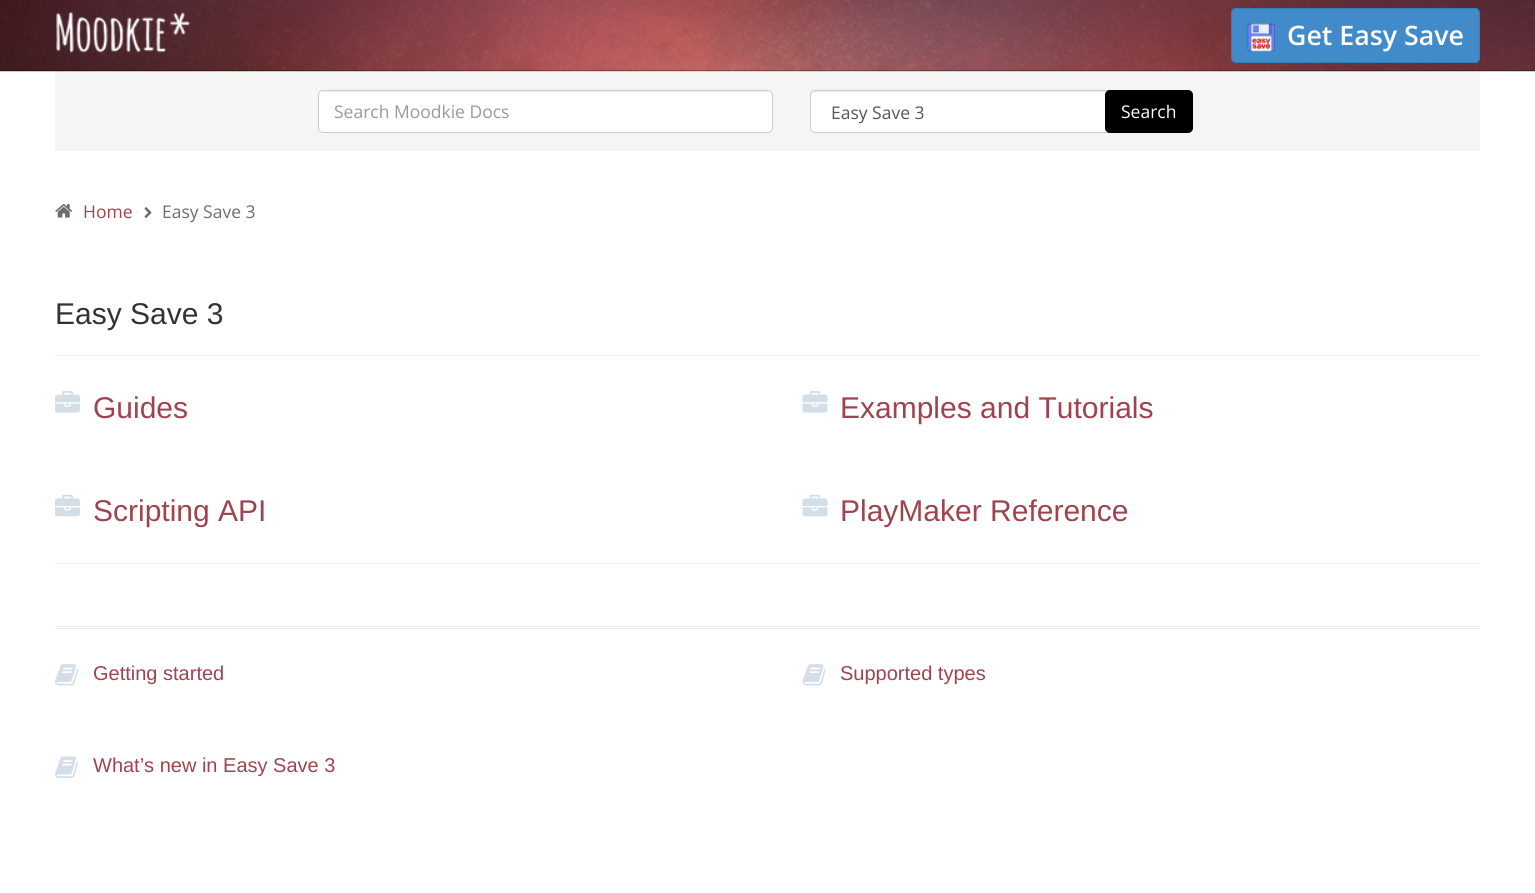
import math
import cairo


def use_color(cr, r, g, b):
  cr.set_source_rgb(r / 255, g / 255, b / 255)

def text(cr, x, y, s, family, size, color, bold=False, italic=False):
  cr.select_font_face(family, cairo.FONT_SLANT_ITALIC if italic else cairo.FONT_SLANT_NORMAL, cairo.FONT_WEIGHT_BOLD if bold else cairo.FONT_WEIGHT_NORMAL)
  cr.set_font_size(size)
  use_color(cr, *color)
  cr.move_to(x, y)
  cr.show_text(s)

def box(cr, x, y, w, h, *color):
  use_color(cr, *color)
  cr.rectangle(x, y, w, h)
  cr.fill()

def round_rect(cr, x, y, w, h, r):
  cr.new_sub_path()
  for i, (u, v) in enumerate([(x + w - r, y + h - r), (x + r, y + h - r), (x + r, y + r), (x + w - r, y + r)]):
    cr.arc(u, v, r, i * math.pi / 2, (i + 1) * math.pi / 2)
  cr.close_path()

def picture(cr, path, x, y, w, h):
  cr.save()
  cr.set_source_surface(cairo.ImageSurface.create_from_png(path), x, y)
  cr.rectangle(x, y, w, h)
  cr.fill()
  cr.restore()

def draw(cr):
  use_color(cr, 255, 255, 255)
  cr.paint()
  box(cr, 55, 71, 1425, 80, 245, 245, 245)
  picture(cr, "img_01.png", 0, 0, 1535, 72)
  cr.set_source_rgba(0, 0, 0, 0.3)
  cr.rectangle(0, 70, 1535, 1)
  cr.fill()
  picture(cr, "img_02.png", 56, 12, 135, 41)
  use_color(cr, 66, 139, 202)
  round_rect(cr, 1231.5, 8.5, 248, 54, 4.5)
  cr.fill_preserve()
  use_color(cr, 53, 126, 189)
  cr.set_line_width(1)
  cr.stroke()
  picture(cr, "img_03.png", 1247, 23, 28, 29)
  use_color(cr, 255, 255, 255)
  round_rect(cr, 318, 90, 455, 43, 5)
  cr.fill()
  use_color(cr, 236, 236, 236)
  cr.new_path()
  cr.move_to(322, 92)
  cr.line_to(768, 92)
  cr.curve_to(770, 92, 771, 94, 771, 96)
  cr.curve_to(771, 93, 770, 91, 767, 91)
  cr.line_to(323, 91)
  cr.line_to(321, 92)
  cr.line_to(320, 93)
  cr.line_to(319, 96)
  cr.curve_to(319, 94, 320, 92, 322, 92)
  cr.close_path()
  cr.fill()
  round_rect(cr, 318.5, 90.5, 454, 42, 4.5)
  use_color(cr, 204, 204, 204)
  cr.stroke()
  use_color(cr, 255, 255, 255)
  round_rect(cr, 810, 90, 345, 43, 5)
  cr.fill()
  use_color(cr, 236, 236, 236)
  cr.new_path()
  cr.move_to(815, 92)
  cr.line_to(1150, 92)
  cr.curve_to(1152, 92, 1154, 94, 1154, 96)
  cr.line_to(1154, 95)
  cr.curve_to(1154, 93, 1152, 91, 1150, 91)
  cr.line_to(815, 91)
  cr.curve_to(813, 91, 811, 93, 811, 95)
  cr.line_to(811, 96)
  cr.curve_to(811, 94, 813, 92, 815, 92)
  cr.close_path()
  cr.fill()
  round_rect(cr, 810.5, 90.5, 344, 42, 4.5)
  use_color(cr, 204, 204, 204)
  cr.stroke()
  use_color(cr, 0, 0, 0)
  round_rect(cr, 1105.5, 90.5, 87, 42, 4.5)
  cr.fill_preserve()
  cr.stroke()
  picture(cr, "img_04.png", 55, 204, 18, 14)
  picture(cr, "img_05.png", 144, 207, 8, 11)
  box(cr, 55, 355, 1425, 1, 238, 238, 238)
  box(cr, 55, 563, 1425, 1, 238, 238, 238)
  picture(cr, "img_06.png", 55, 391, 25, 22)
  picture(cr, "img_07.png", 802, 391, 26, 22)
  picture(cr, "img_08.png", 55, 494, 25, 23)
  picture(cr, "img_09.png", 802, 494, 26, 23)
  box(cr, 55, 626, 1425, 1, 238, 238, 238)
  box(cr, 55, 628, 1425, 1, 238, 238, 238)
  picture(cr, "img_10.png", 55, 664, 24, 22)
  picture(cr, "img_11.png", 802, 664, 24, 22)
  picture(cr, "img_12.png", 55, 756, 24, 22)
  text(cr, 1287, 45, "Get Easy Save", "Open Sans SemiBold", 26.75, (255, 255, 255))
  text(cr, 334, 118, "Search Moodkie Docs", "Open Sans", 17.5, (153, 153, 153))
  text(cr, 831, 119, "Easy Save 3", "Open Sans", 17.5, (85, 85, 85))
  text(cr, 1121, 118, "Search", "Open Sans", 17.5, (255, 255, 255))
  text(cr, 83, 218, "Home", "Open Sans", 17.5, (159, 68, 78))
  text(cr, 162, 218, "Easy Save 3", "Open Sans", 17.5, (109, 109, 109))
  text(cr, 55, 324, "Easy Save 3", "Liberation Sans", 30, (51, 51, 51))
  text(cr, 93, 418, "Guides", "Liberation Sans", 30, (159, 68, 78))
  text(cr, 840, 418, "Examples and Tutorials", "Liberation Sans", 30, (159, 68, 78))
  text(cr, 93, 521, "Scripting API", "Liberation Sans", 30, (159, 68, 78))
  text(cr, 840, 521, "PlayMaker Reference", "Liberation Sans", 30, (159, 68, 78))
  text(cr, 93, 680, "Getting started", "Liberation Sans", 20, (159, 68, 78))
  text(cr, 840, 680, "Supported types", "Liberation Sans", 20, (159, 68, 78))
  text(cr, 93, 772, "What’s new in Easy Save 3", "Liberation Sans", 20, (159, 68, 78))


surface = cairo.ImageSurface(cairo.FORMAT_RGB24, 1535, 893)
cr = cairo.Context(surface)
options = cairo.FontOptions()
options.set_hint_metrics(cairo.HINT_METRICS_OFF)
options.set_hint_style(cairo.HINT_STYLE_NONE)
cr.set_font_options(options)
cr.set_miter_limit(4)
draw(cr)
surface.write_to_png("out.png")
